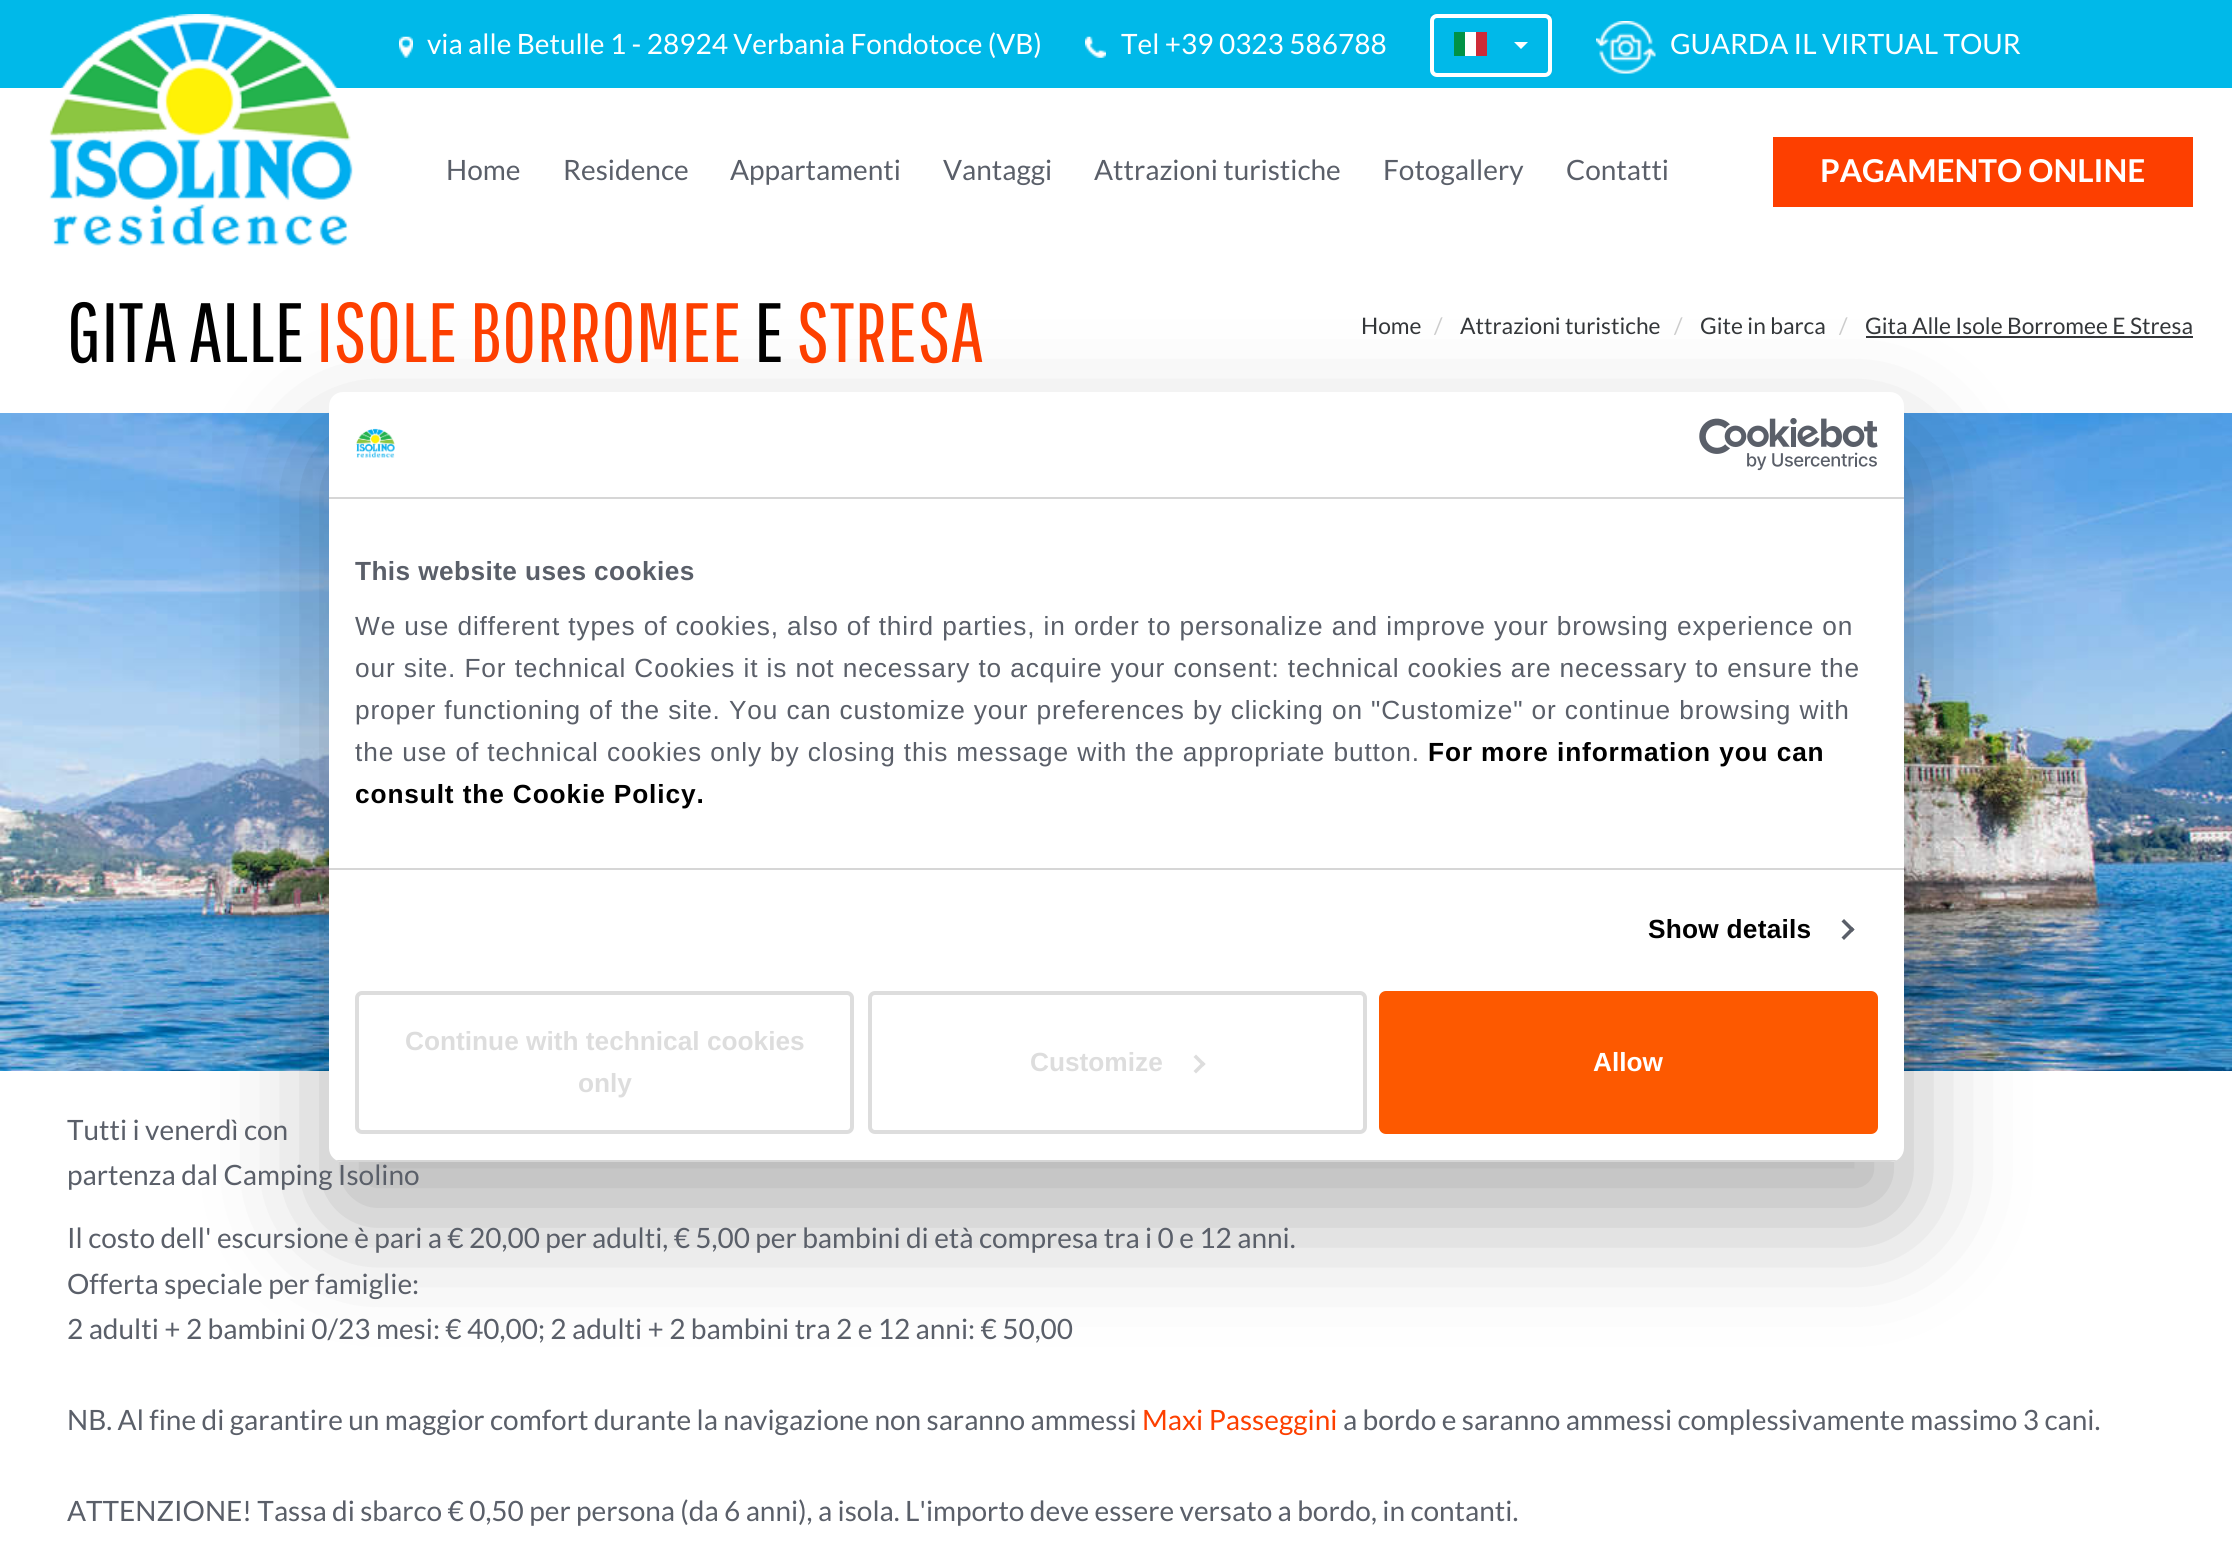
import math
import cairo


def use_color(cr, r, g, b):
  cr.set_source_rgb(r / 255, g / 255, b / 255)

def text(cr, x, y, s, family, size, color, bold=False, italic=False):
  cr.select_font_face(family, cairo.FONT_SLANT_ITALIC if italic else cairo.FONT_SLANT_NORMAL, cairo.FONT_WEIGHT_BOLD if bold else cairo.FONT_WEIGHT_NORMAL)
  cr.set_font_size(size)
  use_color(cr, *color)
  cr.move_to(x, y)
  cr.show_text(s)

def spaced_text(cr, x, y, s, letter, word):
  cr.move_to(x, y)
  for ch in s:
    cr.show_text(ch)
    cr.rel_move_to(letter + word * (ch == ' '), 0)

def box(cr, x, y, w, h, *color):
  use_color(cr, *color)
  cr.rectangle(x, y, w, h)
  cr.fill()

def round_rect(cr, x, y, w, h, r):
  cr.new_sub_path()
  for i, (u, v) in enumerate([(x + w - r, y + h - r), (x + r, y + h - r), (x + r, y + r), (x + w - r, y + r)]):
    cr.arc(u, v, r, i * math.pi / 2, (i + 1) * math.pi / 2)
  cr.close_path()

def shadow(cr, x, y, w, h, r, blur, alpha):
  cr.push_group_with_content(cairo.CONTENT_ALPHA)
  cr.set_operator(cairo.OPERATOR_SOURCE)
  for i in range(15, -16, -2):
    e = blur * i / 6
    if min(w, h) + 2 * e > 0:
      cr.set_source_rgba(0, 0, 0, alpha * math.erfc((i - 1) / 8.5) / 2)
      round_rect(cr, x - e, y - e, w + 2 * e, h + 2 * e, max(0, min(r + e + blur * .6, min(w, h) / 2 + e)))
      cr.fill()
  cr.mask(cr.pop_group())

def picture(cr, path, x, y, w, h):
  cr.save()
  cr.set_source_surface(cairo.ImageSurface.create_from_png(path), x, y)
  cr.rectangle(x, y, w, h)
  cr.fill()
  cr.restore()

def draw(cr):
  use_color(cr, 255, 255, 255)
  cr.paint()
  box(cr, 0, 0, 2232, 88, 0, 185, 233)
  picture(cr, "img_01.png", 49, 14, 304, 232)
  picture(cr, "img_02.png", 399, 36, 14, 22)
  picture(cr, "img_03.png", 1085, 36, 21, 22)
  box(cr, 1430, 14, 122, 2, 0, 171, 216)
  round_rect(cr, 1432, 16, 118, 59, 5)
  use_color(cr, 255, 255, 255)
  cr.set_line_width(4)
  cr.stroke()
  box(cr, 1465, 32, 11, 24, 255, 255, 255)
  box(cr, 1454, 32, 11, 24, 0, 146, 70)
  box(cr, 1476, 32, 11, 24, 206, 43, 55)
  use_color(cr, 255, 255, 255)
  cr.new_path()
  cr.move_to(1514, 42)
  cr.line_to(1528, 42)
  cr.line_to(1521, 49)
  cr.close_path()
  cr.fill()
  picture(cr, "img_04.png", 1596, 21, 60, 53)
  box(cr, 1773, 137, 420, 70, 253, 63, 0)
  box(cr, 1866, 336, 327, 2, 52, 55, 58)
  picture(cr, "img_05.png", 0, 413, 2232, 658)
  use_color(cr, 0, 0, 0)
  shadow(cr, 329, 448, 1575, 770, 14, 59.5, 0.3)
  use_color(cr, 255, 255, 255)
  round_rect(cr, 329, 392, 1575, 770, 14)
  cr.fill()
  box(cr, 329, 497, 1575, 2, 214, 214, 214)
  picture(cr, "img_06.png", 356, 428, 39, 30)
  picture(cr, "img_07.png", 1699, 418, 179, 53)
  box(cr, 329, 868, 1575, 2, 214, 214, 214)
  use_color(cr, 90, 95, 105)
  cr.new_path()
  cr.move_to(1844, 919)
  cr.line_to(1854.5, 929.5)
  cr.line_to(1852, 932)
  cr.line_to(1841.5, 921.5)
  cr.close_path()
  cr.fill()
  cr.new_path()
  cr.move_to(1852, 927)
  cr.line_to(1854.5, 929.5)
  cr.line_to(1844, 940)
  cr.line_to(1841.5, 937.5)
  cr.close_path()
  cr.fill()
  cr.save()
  round_rect(cr, 329, 392, 1575, 770, 14)
  cr.clip()
  box(cr, 329, 1160, 1575, 2, 214, 214, 214)
  cr.restore()
  round_rect(cr, 357, 993, 495, 139, 5)
  use_color(cr, 221, 221, 221)
  cr.stroke()
  round_rect(cr, 870, 993, 495, 139, 5)
  cr.stroke()
  cr.new_path()
  cr.move_to(1196, 1054.5)
  cr.line_to(1205.5, 1064)
  cr.line_to(1203, 1066.5)
  cr.line_to(1193.5, 1057)
  cr.close_path()
  cr.fill()
  cr.new_path()
  cr.move_to(1203, 1061.5)
  cr.line_to(1205.5, 1064)
  cr.line_to(1196, 1073.5)
  cr.line_to(1193.5, 1071)
  cr.close_path()
  cr.fill()
  use_color(cr, 253, 89, 0)
  round_rect(cr, 1381, 993, 495, 139, 5)
  cr.fill_preserve()
  cr.stroke()
  text(cr, 427, 54, "via alle Betulle 1 - 28924 Verbania Fondotoce (VB)", "Lato", 28, (255, 255, 255))
  text(cr, 1121, 54, "Tel +39 0323 586788", "Lato", 28, (255, 255, 255))
  text(cr, 1670, 54, "GUARDA IL VIRTUAL TOUR", "Lato", 28, (255, 255, 255))
  text(cr, 446, 180, "Home", "Lato", 28, (90, 95, 105))
  text(cr, 563, 180, "Residence", "Lato", 28, (90, 95, 105))
  text(cr, 730, 180, "Appartamenti", "Lato", 28, (90, 95, 105))
  text(cr, 943, 180, "Vantaggi", "Lato", 28, (90, 95, 105))
  text(cr, 1094, 180, "Attrazioni turistiche", "Lato", 28, (90, 95, 105))
  text(cr, 1383, 180, "Fotogallery", "Lato", 28, (90, 95, 105))
  text(cr, 1566, 180, "Contatti", "Lato", 28, (90, 95, 105))
  text(cr, 1820, 182, "PAGAMENTO ONLINE", "Lato", 31.5, (255, 255, 255), bold=True)
  text(cr, 67, 362, "GITA ALLE", "Pathway Gothic One", 84, (0, 0, 0))
  text(cr, 316, 362, "ISOLE BORROMEE", "Pathway Gothic One", 84, (253, 63, 0))
  text(cr, 754, 362, "E", "Pathway Gothic One", 84, (0, 0, 0))
  text(cr, 796, 362, "STRESA", "Pathway Gothic One", 84, (253, 63, 0))
  text(cr, 1361, 334, "Home", "Lato", 22.75, (52, 55, 58))
  text(cr, 1434, 334, "/", "Lato", 22.75, (204, 204, 204))
  text(cr, 1460, 334, "Attrazioni turistiche", "Lato", 22.75, (52, 55, 58))
  text(cr, 1674, 334, "/", "Lato", 22.75, (204, 204, 204))
  text(cr, 1700, 334, "Gite in barca", "Lato", 22.75, (52, 55, 58))
  text(cr, 1839, 334, "/", "Lato", 22.75, (204, 204, 204))
  text(cr, 1865, 334, "Gita Alle Isole Borromee E Stresa", "Lato", 22.75, (52, 55, 58))
  text(cr, 67, 1140, "Tutti i venerdì con", "Lato", 28, (90, 95, 105))
  text(cr, 67, 1185, "partenza dal Camping Isolino", "Lato", 28, (90, 95, 105))
  text(cr, 67, 1248, "Il costo dell' escursione è pari a € 20,00 per adulti, € 5,00 per bambini di età compresa tra i 0 e 12 anni.", "Lato", 28, (90, 95, 105))
  text(cr, 67, 1294, "Offerta speciale per famiglie:", "Lato", 28, (90, 95, 105))
  text(cr, 67, 1339, "2 adulti + 2 bambini 0/23 mesi: € 40,00; 2 adulti + 2 bambini tra 2 e 12 anni: € 50,00", "Lato", 28, (90, 95, 105))
  text(cr, 67, 1430, "NB. Al fine di garantire un maggior comfort durante la navigazione non saranno ammessi", "Lato", 28, (90, 95, 105))
  text(cr, 1142, 1430, "Maxi Passeggini", "Lato", 28, (253, 63, 0))
  text(cr, 1343, 1430, "a bordo e saranno ammessi complessivamente massimo 3 cani.", "Lato", 28, (90, 95, 105))
  text(cr, 67, 1521, "ATTENZIONE! Tassa di sbarco € 0,50 per persona (da 6 anni), a isola. L'importo deve essere versato a bordo, in contanti.", "Lato", 28, (90, 95, 105))
  cr.select_font_face("Liberation Sans", cairo.FONT_SLANT_NORMAL, cairo.FONT_WEIGHT_BOLD)
  cr.set_font_size(26.25)
  spaced_text(cr, 355, 580, "This website uses cookies", 0.4, 0)
  cr.select_font_face("Liberation Sans")
  spaced_text(cr, 355, 635, "We use different types of cookies, also of third parties, in order to personalize and improve your browsing experience on", 0.88, 0)
  spaced_text(cr, 355, 677, "our site. For technical Cookies it is not necessary to acquire your consent: technical cookies are necessary to ensure the", 0.88, 0)
  spaced_text(cr, 355, 719, "proper functioning of the site. You can customize your preferences by clicking on \"Customize\" or continue browsing with", 0.88, 0)
  spaced_text(cr, 355, 761, "the use of technical cookies only by closing this message with the appropriate button.", 0.88, 0)
  cr.select_font_face("Liberation Sans", cairo.FONT_SLANT_NORMAL, cairo.FONT_WEIGHT_BOLD)
  use_color(cr, 0, 0, 0)
  spaced_text(cr, 1428, 761, "For more information you can", 0.88, 0)
  spaced_text(cr, 355, 803, "consult the Cookie Policy.", 0.88, 0)
  spaced_text(cr, 1648, 938, "Show details", 0.25, 0)
  text(cr, 405, 1050, "Continue with technical cookies", "Liberation Sans", 26.25, (221, 221, 221), bold=True)
  text(cr, 578, 1092, "only", "Liberation Sans", 26.25, (221, 221, 221), bold=True)
  text(cr, 1030, 1071, "Customize", "Liberation Sans", 26.25, (221, 221, 221), bold=True)
  text(cr, 1593, 1071, "Allow", "Liberation Sans", 26.25, (255, 255, 255), bold=True)


surface = cairo.ImageSurface(cairo.FORMAT_RGB24, 2232, 1551)
cr = cairo.Context(surface)
options = cairo.FontOptions()
options.set_hint_metrics(cairo.HINT_METRICS_OFF)
options.set_hint_style(cairo.HINT_STYLE_NONE)
cr.set_font_options(options)
cr.set_miter_limit(4)
draw(cr)
surface.write_to_png("out.png")
